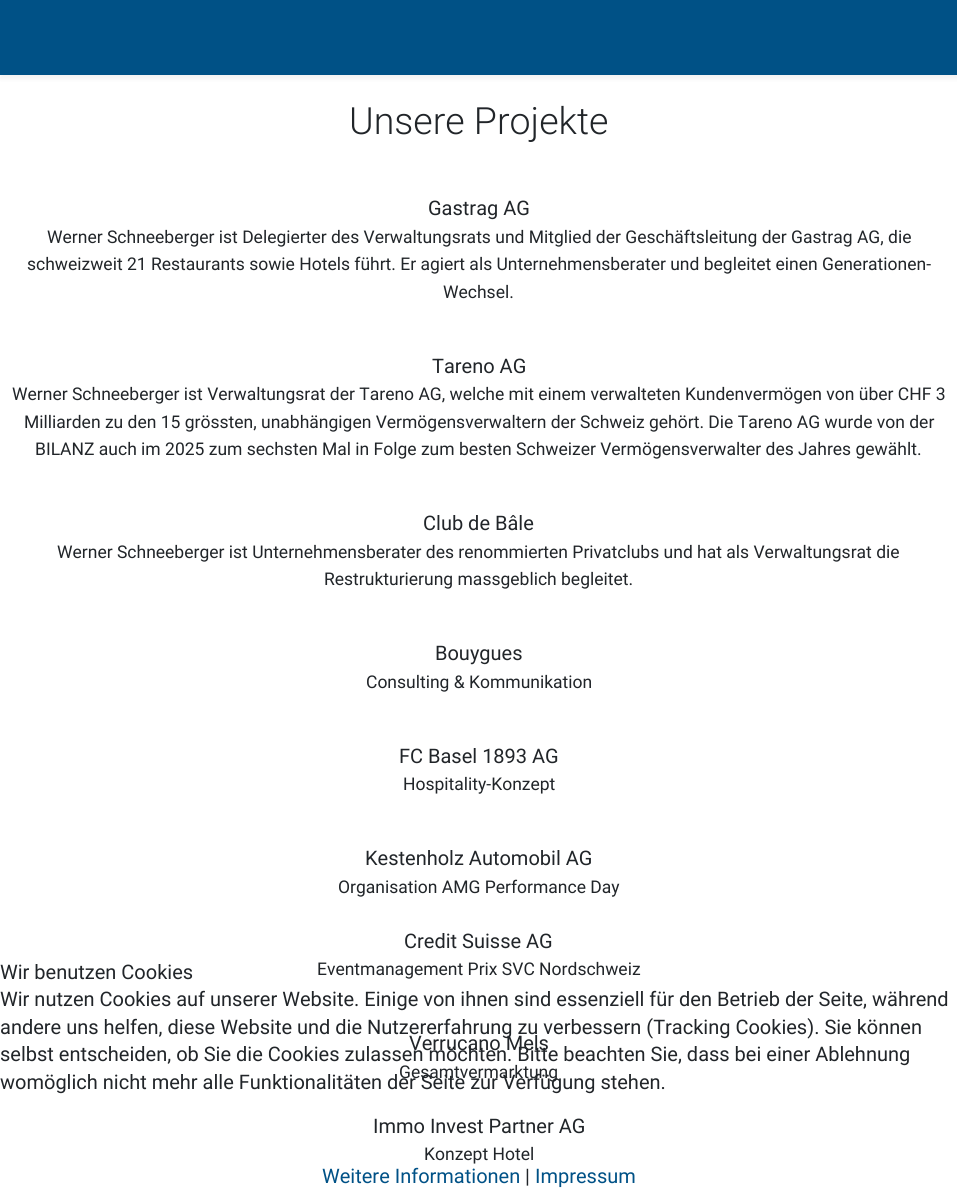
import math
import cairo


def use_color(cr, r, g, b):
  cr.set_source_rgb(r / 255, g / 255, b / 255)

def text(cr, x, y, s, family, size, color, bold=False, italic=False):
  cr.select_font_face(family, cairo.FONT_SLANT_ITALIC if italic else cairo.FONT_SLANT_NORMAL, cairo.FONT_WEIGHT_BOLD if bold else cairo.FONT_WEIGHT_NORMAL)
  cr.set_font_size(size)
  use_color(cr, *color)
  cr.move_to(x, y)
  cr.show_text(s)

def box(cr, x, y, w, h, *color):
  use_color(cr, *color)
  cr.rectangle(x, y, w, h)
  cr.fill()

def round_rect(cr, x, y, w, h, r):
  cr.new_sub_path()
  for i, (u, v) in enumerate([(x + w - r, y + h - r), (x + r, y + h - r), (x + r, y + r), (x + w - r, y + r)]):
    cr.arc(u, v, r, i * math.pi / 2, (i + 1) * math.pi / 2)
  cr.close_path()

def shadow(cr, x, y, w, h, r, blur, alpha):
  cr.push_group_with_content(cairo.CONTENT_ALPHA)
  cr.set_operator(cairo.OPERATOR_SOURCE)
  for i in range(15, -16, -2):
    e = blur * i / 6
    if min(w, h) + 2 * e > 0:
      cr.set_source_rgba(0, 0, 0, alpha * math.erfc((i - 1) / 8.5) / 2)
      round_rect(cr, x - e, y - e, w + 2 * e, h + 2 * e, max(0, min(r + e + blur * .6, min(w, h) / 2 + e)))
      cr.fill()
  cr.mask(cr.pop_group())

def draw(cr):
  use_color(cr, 255, 255, 255)
  cr.paint()
  use_color(cr, 0, 0, 0)
  shadow(cr, 0, 4, 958, 75, 0, 2, 0.05)
  box(cr, 0, 0, 957, 75, 0, 81, 134)
  text(cr, 349, 134, "Unsere Projekte", "Roboto Light", 37.5, (33, 37, 41))
  text(cr, 428, 215, "Gastrag AG", "Roboto", 20, (33, 37, 41))
  text(cr, 47, 243, "Werner Schneeberger ist Delegierter des Verwaltungsrats und Mitglied der Geschäftsleitung der Gastrag AG, die", "Roboto", 17.5, (33, 37, 41))
  text(cr, 27, 270, "schweizweit 21 Restaurants sowie Hotels führt. Er agiert als Unternehmensberater und begleitet einen Generationen-", "Roboto", 17.5, (33, 37, 41))
  text(cr, 443, 298, "Wechsel.", "Roboto", 17.5, (33, 37, 41))
  text(cr, 432, 373, "Tareno AG", "Roboto", 20, (33, 37, 41))
  text(cr, 12, 400, "Werner Schneeberger ist Verwaltungsrat der Tareno AG, welche mit einem verwalteten Kundenvermögen von über CHF 3", "Roboto", 17.5, (33, 37, 41))
  text(cr, 24, 428, "Milliarden zu den 15 grössten, unabhängigen Vermögensverwaltern der Schweiz gehört. Die Tareno AG wurde von der", "Roboto", 17.5, (33, 37, 41))
  text(cr, 35, 455, "BILANZ auch im 2025 zum sechsten Mal in Folge zum besten Schweizer Vermögensverwalter des Jahres gewählt.", "Roboto", 17.5, (33, 37, 41))
  text(cr, 423, 530, "Club de Bâle", "Roboto", 20, (33, 37, 41))
  text(cr, 57, 558, "Werner Schneeberger ist Unternehmensberater des renommierten Privatclubs und hat als Verwaltungsrat die", "Roboto", 17.5, (33, 37, 41))
  text(cr, 324, 585, "Restrukturierung massgeblich begleitet.", "Roboto", 17.5, (33, 37, 41))
  text(cr, 435, 660, "Bouygues", "Roboto", 20, (33, 37, 41))
  text(cr, 366, 688, "Consulting & Kommunikation", "Roboto", 17.5, (33, 37, 41))
  text(cr, 399, 763, "FC Basel 1893 AG", "Roboto", 20, (33, 37, 41))
  text(cr, 403, 790, "Hospitality-Konzept", "Roboto", 17.5, (33, 37, 41))
  text(cr, 365, 865, "Kestenholz Automobil AG", "Roboto", 20, (33, 37, 41))
  text(cr, 338, 893, "Organisation AMG Performance Day", "Roboto", 17.5, (33, 37, 41))
  text(cr, 404, 948, "Credit Suisse AG", "Roboto", 20, (33, 37, 41))
  text(cr, 317, 975, "Eventmanagement Prix SVC Nordschweiz", "Roboto", 17.5, (33, 37, 41))
  text(cr, 409, 1050, "Verrucano Mels", "Roboto", 20, (33, 37, 41))
  text(cr, 399, 1078, "Gesamtvermarktung", "Roboto", 17.5, (33, 37, 41))
  text(cr, 373, 1133, "Immo Invest Partner AG", "Roboto", 20, (33, 37, 41))
  text(cr, 424, 1160, "Konzept Hotel", "Roboto", 17.5, (33, 37, 41))
  text(cr, 0, 979, "Wir benutzen Cookies", "Roboto", 20, (33, 37, 41))
  text(cr, 0, 1006, "Wir nutzen Cookies auf unserer Website. Einige von ihnen sind essenziell für den Betrieb der Seite, während", "Roboto", 20, (33, 37, 41))
  text(cr, 0, 1034, "andere uns helfen, diese Website und die Nutzererfahrung zu verbessern (Tracking Cookies). Sie können", "Roboto", 20, (33, 37, 41))
  text(cr, 0, 1061, "selbst entscheiden, ob Sie die Cookies zulassen möchten. Bitte beachten Sie, dass bei einer Ablehnung", "Roboto", 20, (33, 37, 41))
  text(cr, 0, 1089, "womöglich nicht mehr alle Funktionalitäten der Seite zur Verfügung stehen.", "Roboto", 20, (33, 37, 41))
  text(cr, 322, 1183, "Weitere Informationen", "Roboto", 20, (0, 81, 134))
  text(cr, 525, 1183, "|", "Roboto", 20, (33, 37, 41))
  text(cr, 535, 1183, "Impressum", "Roboto", 20, (0, 81, 134))


surface = cairo.ImageSurface(cairo.FORMAT_RGB24, 957, 1190)
cr = cairo.Context(surface)
options = cairo.FontOptions()
options.set_hint_metrics(cairo.HINT_METRICS_OFF)
options.set_hint_style(cairo.HINT_STYLE_NONE)
cr.set_font_options(options)
cr.set_miter_limit(4)
draw(cr)
surface.write_to_png("out.png")
